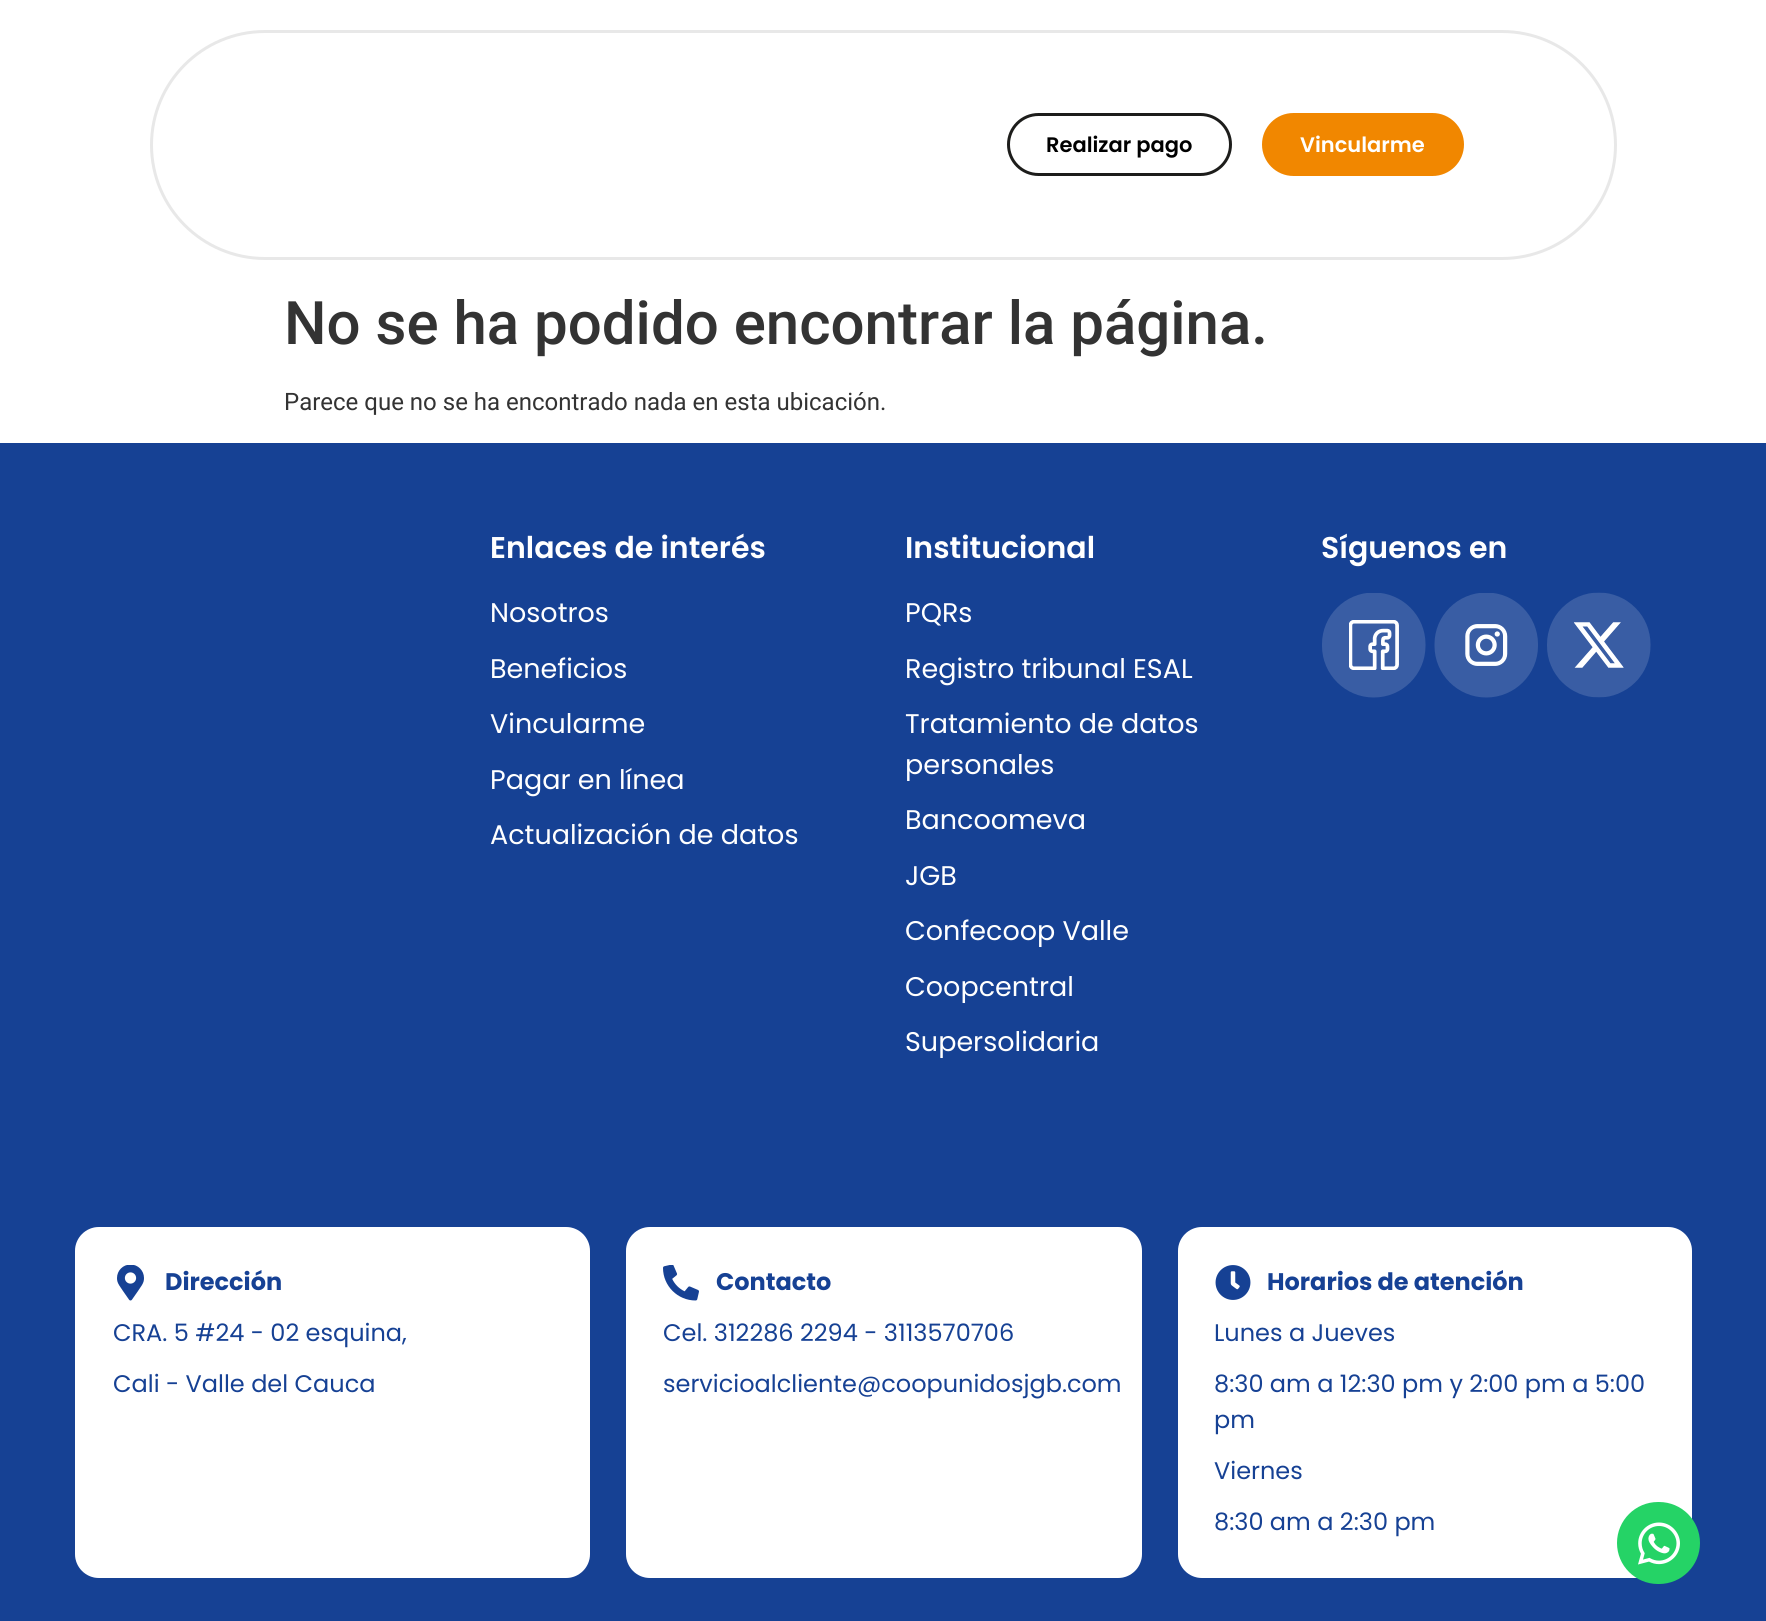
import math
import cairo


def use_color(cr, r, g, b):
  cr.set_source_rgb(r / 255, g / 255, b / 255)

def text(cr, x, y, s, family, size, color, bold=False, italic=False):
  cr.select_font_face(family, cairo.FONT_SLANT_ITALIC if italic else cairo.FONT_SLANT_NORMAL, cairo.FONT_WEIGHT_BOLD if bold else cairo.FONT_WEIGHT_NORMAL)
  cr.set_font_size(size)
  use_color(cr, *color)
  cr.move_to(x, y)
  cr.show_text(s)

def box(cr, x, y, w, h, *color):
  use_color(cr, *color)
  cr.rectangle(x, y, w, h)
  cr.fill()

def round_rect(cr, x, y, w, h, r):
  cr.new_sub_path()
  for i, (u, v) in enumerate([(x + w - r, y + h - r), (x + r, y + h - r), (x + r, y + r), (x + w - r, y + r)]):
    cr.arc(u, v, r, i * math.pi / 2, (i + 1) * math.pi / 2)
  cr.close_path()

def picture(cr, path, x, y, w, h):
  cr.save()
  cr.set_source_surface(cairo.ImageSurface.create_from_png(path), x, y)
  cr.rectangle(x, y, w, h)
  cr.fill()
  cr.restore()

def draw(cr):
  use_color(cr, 255, 255, 255)
  cr.paint()
  round_rect(cr, 151.5, 31.5, 1464, 227, 113.5)
  use_color(cr, 232, 232, 232)
  cr.set_line_width(3)
  cr.stroke()
  round_rect(cr, 1008.5, 114.5, 222, 60, 30)
  use_color(cr, 29, 29, 27)
  cr.stroke()
  use_color(cr, 241, 135, 0)
  round_rect(cr, 1263.5, 114.5, 199, 60, 30)
  cr.fill_preserve()
  cr.stroke()
  box(cr, 0, 443, 1766, 1178, 22, 65, 148)
  picture(cr, "img_01.png", 1322, 593, 104, 105)
  picture(cr, "img_02.png", 1434, 593, 104, 105)
  picture(cr, "img_03.png", 1547, 592, 104, 106)
  use_color(cr, 255, 255, 255)
  round_rect(cr, 75, 1227, 515, 351, 24)
  cr.fill()
  round_rect(cr, 76, 1228, 513, 349, 23)
  cr.set_source_rgba(1, 1, 1, 0.1)
  cr.set_line_width(2)
  cr.stroke()
  picture(cr, "img_04.png", 117, 1265, 27, 36)
  use_color(cr, 255, 255, 255)
  round_rect(cr, 626, 1227, 516, 351, 24)
  cr.fill()
  round_rect(cr, 627, 1228, 514, 349, 23)
  cr.set_source_rgba(1, 1, 1, 0.1)
  cr.stroke()
  picture(cr, "img_05.png", 663, 1265, 36, 36)
  use_color(cr, 255, 255, 255)
  round_rect(cr, 1178, 1227, 514, 351, 24)
  cr.fill()
  round_rect(cr, 1179, 1228, 512, 349, 23)
  cr.set_source_rgba(1, 1, 1, 0.1)
  cr.stroke()
  picture(cr, "img_06.png", 1215, 1265, 36, 35)
  use_color(cr, 37, 211, 102)
  round_rect(cr, 1617, 1502, 83, 82, 41)
  cr.fill()
  picture(cr, "img_07.png", 1638, 1522, 42, 43)
  text(cr, 1046, 152, "Realizar pago", "Poppins SemiBold", 21, (0, 0, 0))
  text(cr, 1300, 152, "Vincularme", "Poppins SemiBold", 21, (255, 255, 255))
  text(cr, 284, 344, "No se ha podido encontrar la página.", "Roboto Medium", 60, (51, 51, 51))
  text(cr, 284, 410, "Parece que no se ha encontrado nada en esta ubicación.", "Roboto", 24, (51, 51, 51))
  text(cr, 490, 558, "Enlaces de interés", "Poppins SemiBold", 30, (255, 255, 255))
  text(cr, 490, 622, "Nosotros", "Poppins", 27, (255, 255, 255))
  text(cr, 490, 678, "Beneficios", "Poppins", 27, (255, 255, 255))
  text(cr, 490, 733, "Vincularme", "Poppins", 27, (255, 255, 255))
  text(cr, 490, 789, "Pagar en línea", "Poppins", 27, (255, 255, 255))
  text(cr, 490, 844, "Actualización de datos", "Poppins", 27, (255, 255, 255))
  text(cr, 905, 558, "Institucional", "Poppins SemiBold", 30, (255, 255, 255))
  text(cr, 905, 622, "PQRs", "Poppins", 27, (255, 255, 255))
  text(cr, 905, 678, "Registro tribunal ESAL", "Poppins", 27, (255, 255, 255))
  text(cr, 905, 733, "Tratamiento de datos", "Poppins", 27, (255, 255, 255))
  text(cr, 905, 774, "personales", "Poppins", 27, (255, 255, 255))
  text(cr, 905, 829, "Bancoomeva", "Poppins", 27, (255, 255, 255))
  text(cr, 905, 885, "JGB", "Poppins", 27, (255, 255, 255))
  text(cr, 905, 940, "Confecoop Valle", "Poppins", 27, (255, 255, 255))
  text(cr, 905, 996, "Coopcentral", "Poppins", 27, (255, 255, 255))
  text(cr, 905, 1051, "Supersolidaria", "Poppins", 27, (255, 255, 255))
  text(cr, 1321, 558, "Síguenos en", "Poppins SemiBold", 30, (255, 255, 255))
  text(cr, 165, 1290, "Dirección", "Poppins", 24, (22, 65, 148), bold=True)
  text(cr, 113, 1341, "CRA. 5 #24 - 02 esquina,", "Poppins", 24, (22, 65, 148))
  text(cr, 113, 1392, "Cali - Valle del Cauca", "Poppins", 24, (22, 65, 148))
  text(cr, 716, 1290, "Contacto", "Poppins", 24, (22, 65, 148), bold=True)
  text(cr, 663, 1341, "Cel. 312286 2294 - 3113570706", "Poppins", 24, (22, 65, 148))
  text(cr, 663, 1392, "servicioalcliente@coopunidosjgb.com", "Poppins", 24, (22, 65, 148))
  text(cr, 1267, 1290, "Horarios de atención", "Poppins", 24, (22, 65, 148), bold=True)
  text(cr, 1214, 1341, "Lunes a Jueves", "Poppins", 24, (22, 65, 148))
  text(cr, 1214, 1392, "8:30 am a 12:30 pm y 2:00 pm a 5:00", "Poppins", 24, (22, 65, 148))
  text(cr, 1214, 1428, "pm", "Poppins", 24, (22, 65, 148))
  text(cr, 1214, 1479, "Viernes", "Poppins", 24, (22, 65, 148))
  text(cr, 1214, 1530, "8:30 am a 2:30 pm", "Poppins", 24, (22, 65, 148))


surface = cairo.ImageSurface(cairo.FORMAT_RGB24, 1766, 1621)
cr = cairo.Context(surface)
options = cairo.FontOptions()
options.set_hint_metrics(cairo.HINT_METRICS_OFF)
options.set_hint_style(cairo.HINT_STYLE_NONE)
cr.set_font_options(options)
cr.set_miter_limit(4)
draw(cr)
surface.write_to_png("out.png")
